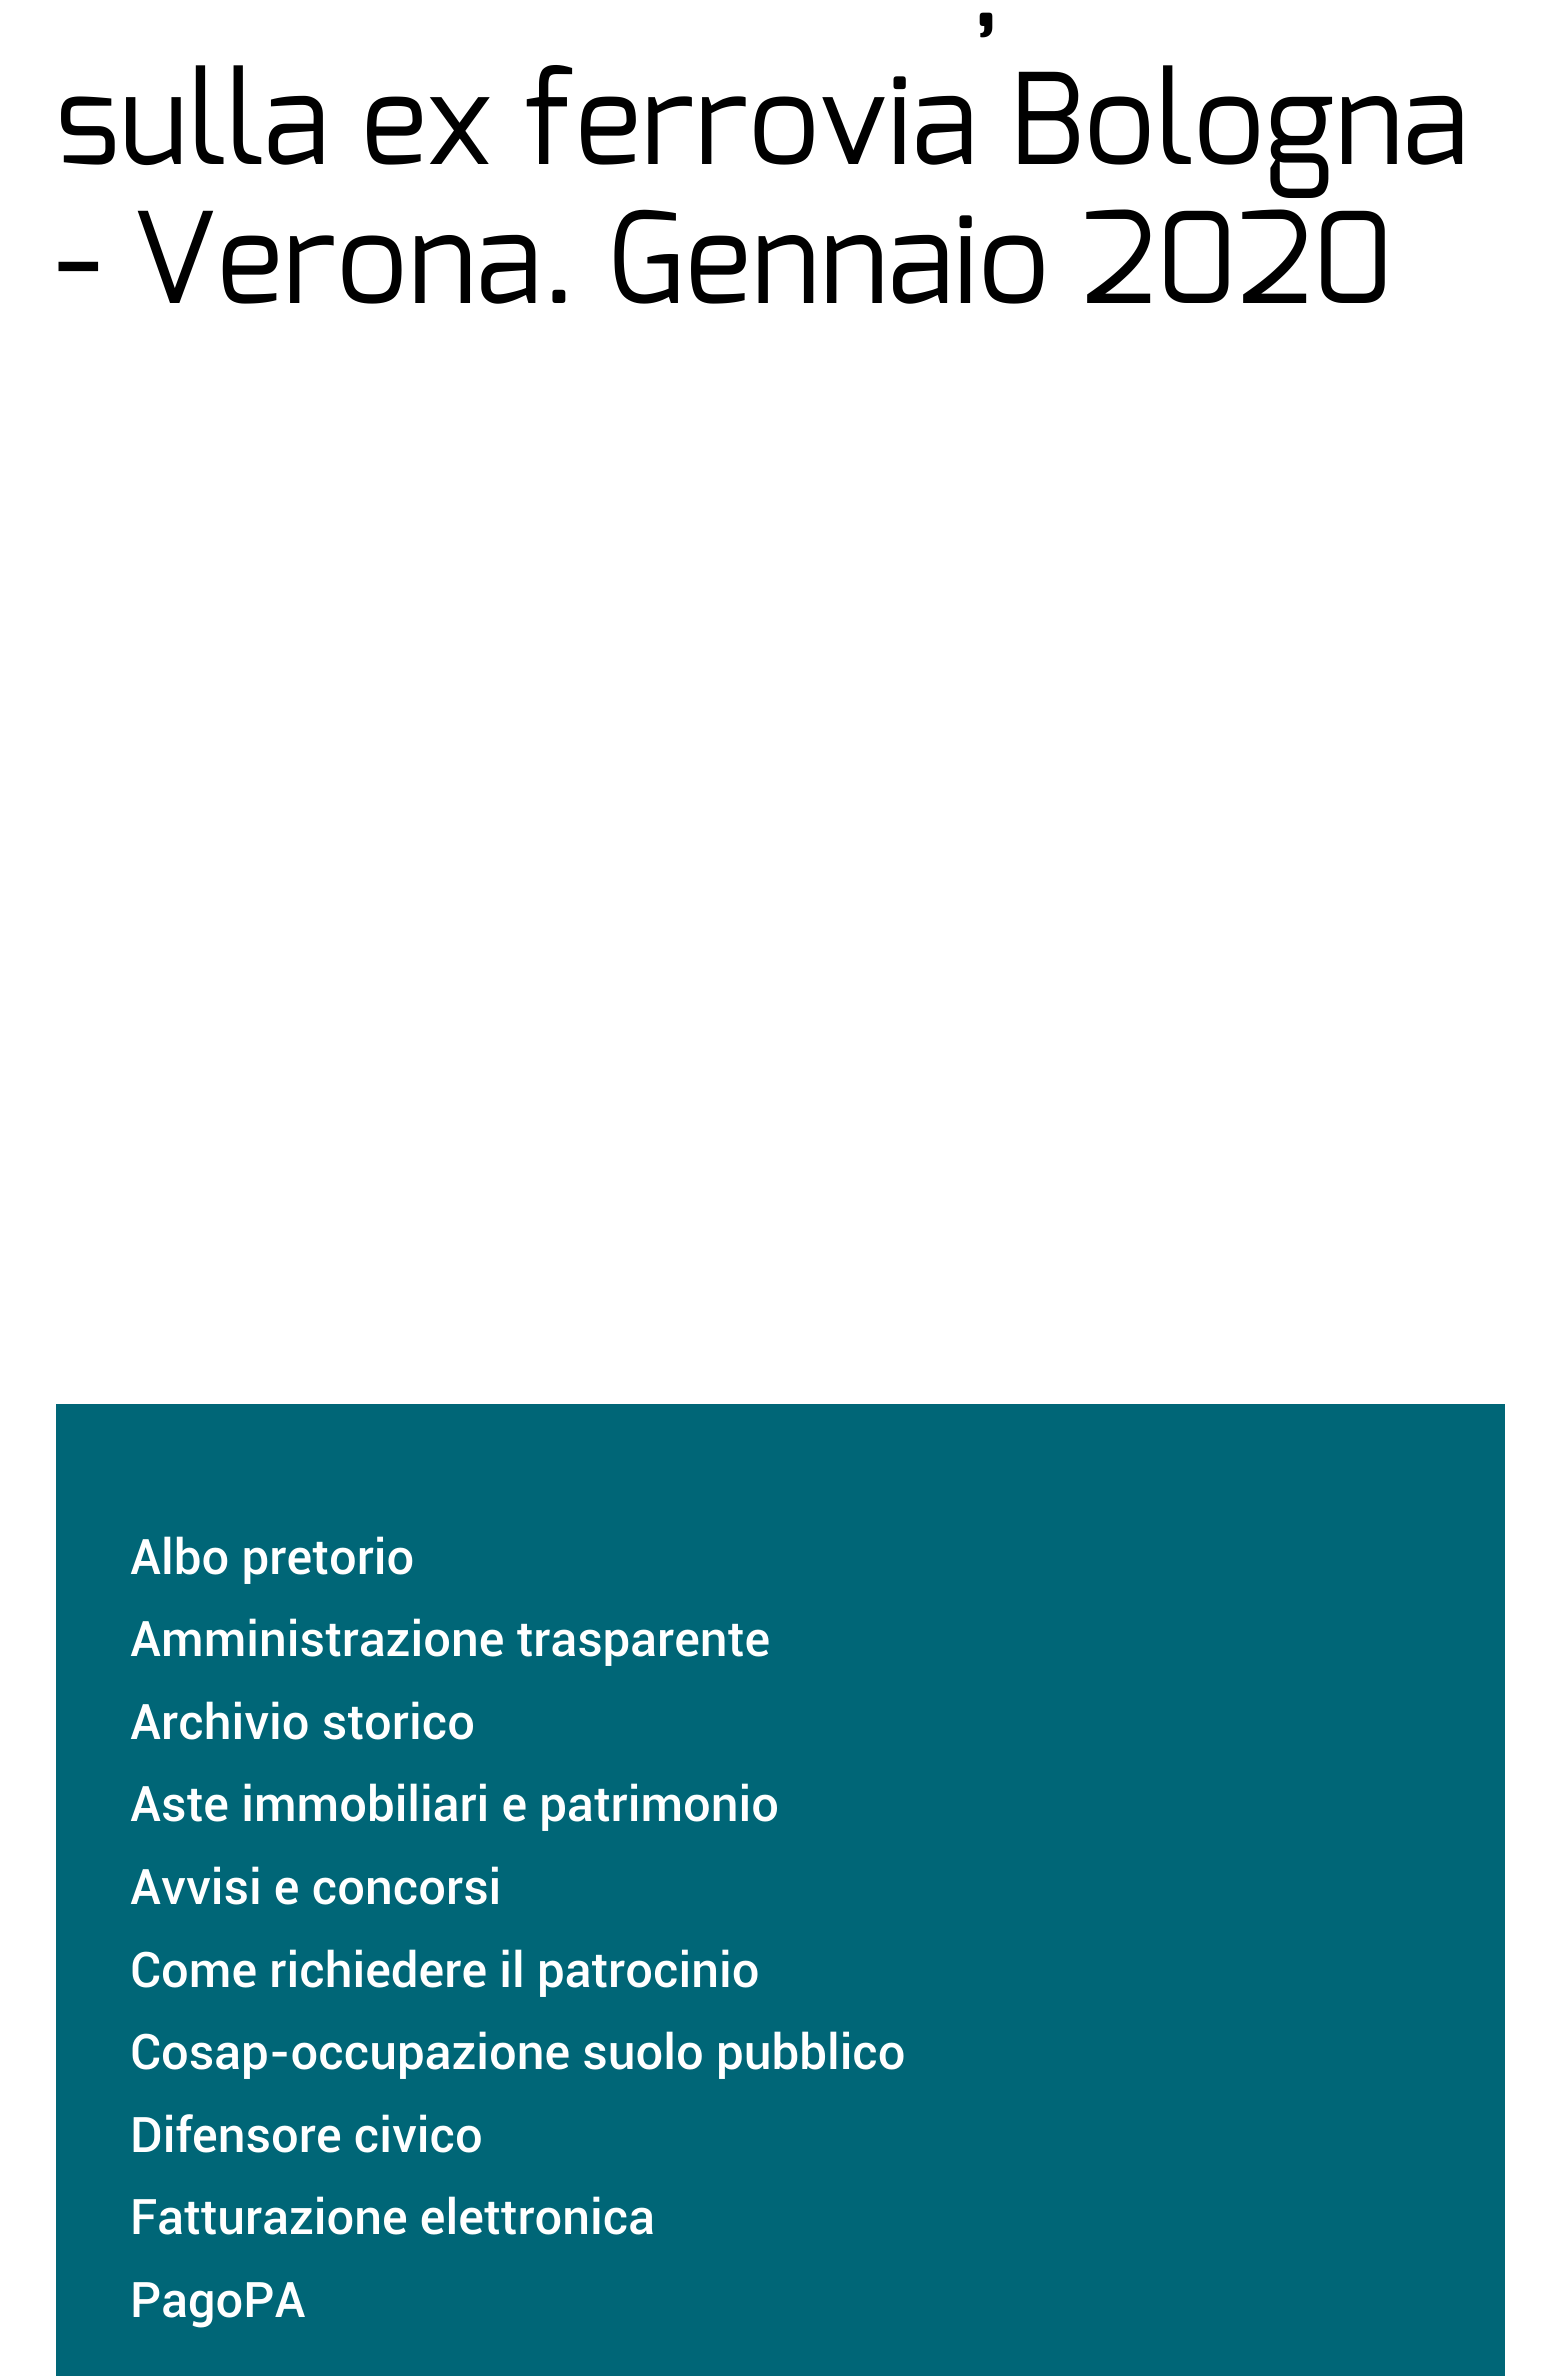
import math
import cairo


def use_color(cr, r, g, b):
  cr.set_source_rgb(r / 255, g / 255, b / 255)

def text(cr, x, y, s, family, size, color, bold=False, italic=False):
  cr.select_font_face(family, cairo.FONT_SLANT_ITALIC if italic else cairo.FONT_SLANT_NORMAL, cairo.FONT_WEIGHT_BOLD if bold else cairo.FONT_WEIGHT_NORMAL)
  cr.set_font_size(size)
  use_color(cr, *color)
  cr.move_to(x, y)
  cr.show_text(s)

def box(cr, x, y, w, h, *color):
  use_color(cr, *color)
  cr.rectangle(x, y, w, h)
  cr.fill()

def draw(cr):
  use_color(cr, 255, 255, 255)
  cr.paint()
  box(cr, 56, 1404, 1449, 972, 0, 102, 119)
  text(cr, 969, 26, ",", "Exo", 126, (0, 0, 0))
  text(cr, 56, 164, "sulla ex ferrovia Bologna", "Exo", 126, (0, 0, 0))
  text(cr, 56, 303, "- Verona. Gennaio 2020", "Exo", 126, (0, 0, 0))
  text(cr, 130, 1574, "Albo pretorio", "Roboto Medium", 49, (255, 255, 255))
  text(cr, 130, 1656, "Amministrazione trasparente", "Roboto Medium", 49, (255, 255, 255))
  text(cr, 130, 1739, "Archivio storico", "Roboto Medium", 49, (255, 255, 255))
  text(cr, 130, 1821, "Aste immobiliari e patrimonio", "Roboto Medium", 49, (255, 255, 255))
  text(cr, 130, 1904, "Avvisi e concorsi", "Roboto Medium", 49, (255, 255, 255))
  text(cr, 130, 1987, "Come richiedere il patrocinio", "Roboto Medium", 49, (255, 255, 255))
  text(cr, 130, 2069, "Cosap-occupazione suolo pubblico", "Roboto Medium", 49, (255, 255, 255))
  text(cr, 130, 2152, "Difensore civico", "Roboto Medium", 49, (255, 255, 255))
  text(cr, 130, 2234, "Fatturazione elettronica", "Roboto Medium", 49, (255, 255, 255))
  text(cr, 130, 2317, "PagoPA", "Roboto Medium", 49, (255, 255, 255))


surface = cairo.ImageSurface(cairo.FORMAT_RGB24, 1561, 2376)
cr = cairo.Context(surface)
options = cairo.FontOptions()
options.set_hint_metrics(cairo.HINT_METRICS_OFF)
options.set_hint_style(cairo.HINT_STYLE_NONE)
cr.set_font_options(options)
cr.set_miter_limit(4)
draw(cr)
surface.write_to_png("out.png")
